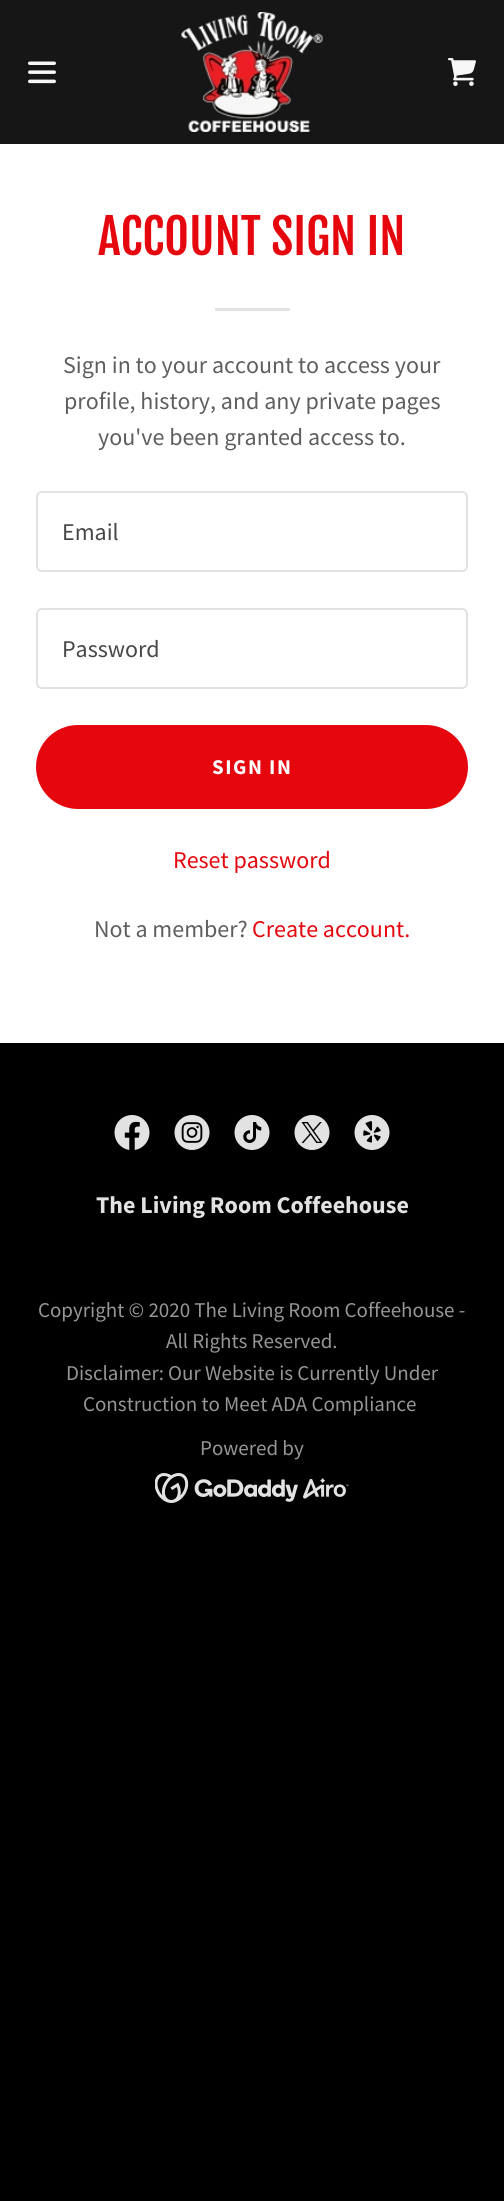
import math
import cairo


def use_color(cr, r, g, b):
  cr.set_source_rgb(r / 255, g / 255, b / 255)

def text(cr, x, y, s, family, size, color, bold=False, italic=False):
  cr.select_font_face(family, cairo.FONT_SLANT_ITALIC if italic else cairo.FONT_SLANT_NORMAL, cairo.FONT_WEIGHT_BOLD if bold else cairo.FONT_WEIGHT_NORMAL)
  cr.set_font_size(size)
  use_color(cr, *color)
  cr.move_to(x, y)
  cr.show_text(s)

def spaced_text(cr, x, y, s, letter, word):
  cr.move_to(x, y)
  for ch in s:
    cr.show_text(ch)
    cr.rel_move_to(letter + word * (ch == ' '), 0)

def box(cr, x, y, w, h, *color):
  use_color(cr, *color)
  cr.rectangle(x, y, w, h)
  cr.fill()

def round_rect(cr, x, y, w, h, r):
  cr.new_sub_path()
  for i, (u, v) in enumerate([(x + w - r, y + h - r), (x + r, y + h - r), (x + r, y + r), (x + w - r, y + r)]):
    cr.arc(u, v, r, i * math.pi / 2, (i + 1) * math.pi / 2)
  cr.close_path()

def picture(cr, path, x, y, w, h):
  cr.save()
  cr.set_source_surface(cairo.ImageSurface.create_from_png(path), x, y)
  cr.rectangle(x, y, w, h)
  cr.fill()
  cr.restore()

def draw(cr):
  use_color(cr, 0, 0, 0)
  cr.paint()
  box(cr, 0, 0, 504, 144, 22, 22, 22)
  picture(cr, "img_01.png", 28, 61, 28, 23)
  picture(cr, "img_02.png", 181, 12, 142, 120)
  picture(cr, "img_03.png", 448, 58, 28, 28)
  box(cr, 0, 144, 504, 899, 255, 255, 255)
  box(cr, 215, 308, 75, 3, 226, 226, 226)
  round_rect(cr, 37, 492, 430, 79, 5)
  cr.stroke()
  round_rect(cr, 37, 609, 430, 79, 5)
  cr.stroke()
  use_color(cr, 229, 7, 13)
  round_rect(cr, 36, 725, 432, 84, 42)
  cr.fill()
  picture(cr, "img_04.png", 114, 1115, 36, 35)
  picture(cr, "img_05.png", 174, 1115, 36, 35)
  picture(cr, "img_06.png", 234, 1115, 36, 35)
  picture(cr, "img_07.png", 294, 1115, 36, 35)
  picture(cr, "img_08.png", 354, 1115, 36, 35)
  picture(cr, "img_09.png", 155, 1473, 194, 30)
  text(cr, 98, 255, "ACCOUNT SIGN IN", "Fjalla One", 48, (229, 7, 13))
  text(cr, 63, 373, "Sign in to your account to access your", "Source Sans Pro", 24, (94, 94, 94))
  text(cr, 64, 409, "profile, history, and any private pages", "Source Sans Pro", 24, (94, 94, 94))
  text(cr, 98, 445, "you've been granted access to.", "Source Sans Pro", 24, (94, 94, 94))
  text(cr, 62, 540, "Email", "Source Sans Pro", 24, (71, 71, 71))
  text(cr, 62, 657, "Password", "Source Sans Pro", 24, (71, 71, 71))
  cr.select_font_face("Source Sans Pro", cairo.FONT_SLANT_NORMAL, cairo.FONT_WEIGHT_BOLD)
  cr.set_font_size(21)
  use_color(cr, 255, 255, 255)
  spaced_text(cr, 212, 774, "SIGN IN", 1.5, 0)
  text(cr, 173, 868, "Reset password", "Source Sans Pro", 24, (229, 7, 13))
  text(cr, 94, 937, "Not a member?", "Source Sans Pro", 24, (94, 94, 94))
  text(cr, 252, 937, "Create account.", "Source Sans Pro", 24, (229, 7, 13))
  text(cr, 96, 1213, "The Living Room Coffeehouse", "Source Sans Pro", 24, (226, 226, 226), bold=True)
  text(cr, 38, 1317, "Copyright © 2020 The Living Room Coffeehouse -", "Source Sans Pro", 21, (150, 150, 150))
  text(cr, 166, 1348, "All Rights Reserved.", "Source Sans Pro", 21, (150, 150, 150))
  text(cr, 66, 1380, "Disclaimer: Our Website is Currently Under", "Source Sans Pro", 21, (150, 150, 150))
  text(cr, 83, 1411, "Construction to Meet ADA Compliance", "Source Sans Pro", 21, (150, 150, 150))
  text(cr, 200, 1455, "Powered by", "Source Sans Pro", 21, (150, 150, 150))


surface = cairo.ImageSurface(cairo.FORMAT_RGB24, 504, 2201)
cr = cairo.Context(surface)
options = cairo.FontOptions()
options.set_hint_metrics(cairo.HINT_METRICS_OFF)
options.set_hint_style(cairo.HINT_STYLE_NONE)
cr.set_font_options(options)
cr.set_miter_limit(4)
draw(cr)
surface.write_to_png("out.png")
